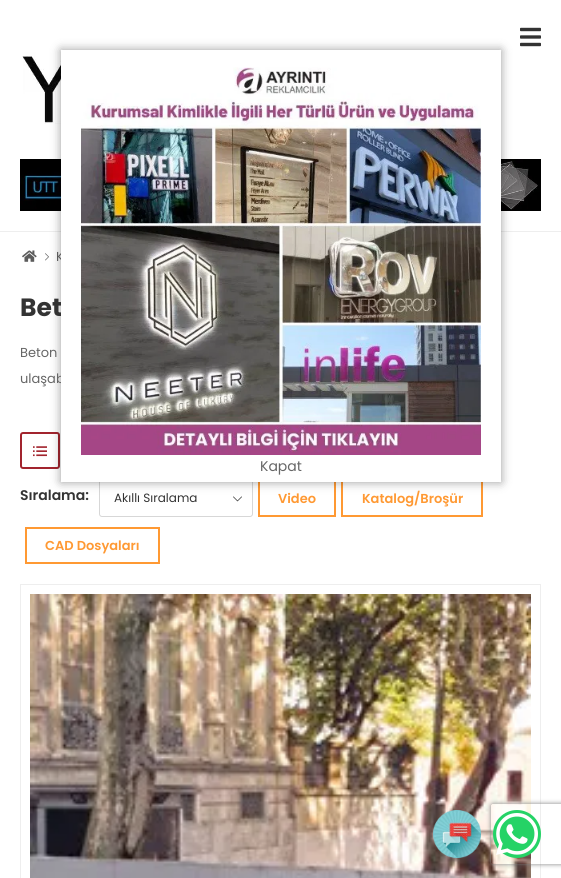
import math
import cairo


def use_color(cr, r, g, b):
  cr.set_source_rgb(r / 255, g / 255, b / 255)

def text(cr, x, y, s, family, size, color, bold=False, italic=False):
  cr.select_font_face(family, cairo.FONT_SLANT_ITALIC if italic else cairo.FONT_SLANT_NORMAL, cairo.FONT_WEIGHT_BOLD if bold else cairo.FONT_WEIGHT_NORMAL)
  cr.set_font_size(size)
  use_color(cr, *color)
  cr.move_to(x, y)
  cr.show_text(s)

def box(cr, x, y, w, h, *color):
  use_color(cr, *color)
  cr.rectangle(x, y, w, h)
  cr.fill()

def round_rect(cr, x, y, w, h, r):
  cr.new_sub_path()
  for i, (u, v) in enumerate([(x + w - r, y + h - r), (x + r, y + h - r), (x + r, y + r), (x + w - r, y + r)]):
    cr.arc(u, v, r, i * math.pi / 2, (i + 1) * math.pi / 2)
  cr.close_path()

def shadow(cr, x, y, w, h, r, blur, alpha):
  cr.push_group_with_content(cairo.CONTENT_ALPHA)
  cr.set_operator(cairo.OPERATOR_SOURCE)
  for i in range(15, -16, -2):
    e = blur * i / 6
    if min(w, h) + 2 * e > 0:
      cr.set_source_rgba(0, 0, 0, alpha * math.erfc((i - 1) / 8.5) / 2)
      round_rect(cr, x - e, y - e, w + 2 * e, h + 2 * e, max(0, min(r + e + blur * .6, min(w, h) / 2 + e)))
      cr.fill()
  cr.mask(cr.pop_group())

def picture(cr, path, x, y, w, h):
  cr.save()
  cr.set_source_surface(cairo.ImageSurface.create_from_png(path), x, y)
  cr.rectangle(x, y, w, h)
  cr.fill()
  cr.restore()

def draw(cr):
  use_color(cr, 255, 255, 255)
  cr.paint()
  box(cr, 0, 231, 561, 1, 238, 238, 238)
  picture(cr, "img_01.png", 520, 27, 21, 20)
  picture(cr, "img_02.png", 22, 52, 39, 72)
  picture(cr, "img_03.png", 20, 159, 521, 52)
  picture(cr, "img_04.png", 22, 250, 15, 12)
  picture(cr, "img_05.png", 45, 253, 4, 8)
  round_rect(cr, 21, 433, 38, 35, 2)
  use_color(cr, 162, 36, 46)
  cr.stroke()
  picture(cr, "img_06.png", 33, 446, 14, 11)
  picture(cr, "img_07.png", 233, 496, 9, 6)
  round_rect(cr, 99.5, 479.5, 153, 37, 2.5)
  use_color(cr, 215, 215, 215)
  cr.set_line_width(1)
  cr.stroke()
  cr.rectangle(259, 481, 76, 35)
  use_color(cr, 255, 153, 51)
  cr.set_line_width(2)
  cr.stroke()
  cr.rectangle(342, 481, 140, 35)
  cr.stroke()
  cr.rectangle(26, 528, 133, 35)
  cr.stroke()
  cr.rectangle(20.5, 584.5, 520, 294)
  use_color(cr, 238, 238, 238)
  cr.set_line_width(1)
  cr.stroke()
  picture(cr, "img_08.png", 30, 594, 501, 284)
  use_color(cr, 0, 0, 0)
  shadow(cr, 61, 50, 440, 432, 0, 5, 0.4)
  picture(cr, "img_10.png", 433, 810, 48, 48)
  cr.save()
  cr.set_fill_rule(cairo.FILL_RULE_EVEN_ODD)
  cr.new_path()
  cr.move_to(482, 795)
  cr.line_to(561, 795)
  cr.line_to(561, 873)
  cr.line_to(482, 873)
  cr.close_path()
  cr.move_to(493, 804)
  cr.line_to(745, 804)
  cr.curve_to(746, 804, 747, 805, 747, 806)
  cr.line_to(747, 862)
  cr.curve_to(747, 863, 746, 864, 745, 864)
  cr.line_to(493, 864)
  cr.curve_to(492, 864, 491, 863, 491, 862)
  cr.line_to(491, 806)
  cr.curve_to(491, 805, 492, 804, 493, 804)
  cr.close_path()
  cr.clip()
  use_color(cr, 128, 128, 128)
  shadow(cr, 491, 804, 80, 60, 2, 2.5, 1)
  cr.restore()
  use_color(cr, 37, 211, 102)
  cr.arc(517, 834, 24, 0, 2 * math.pi)
  cr.fill()
  picture(cr, "img_11.png", 496, 813, 42, 42)
  text(cr, 56, 261, "K", "Poppins", 13, (92, 92, 92))
  text(cr, 20, 316, "Bet", "Poppins", 25, (51, 51, 51), bold=True)
  text(cr, 20, 357, "Beton", "Poppins", 13, (102, 102, 102))
  text(cr, 20, 383, "ulaşab", "Poppins", 13, (102, 102, 102))
  text(cr, 20, 500, "Sıralama:", "Poppins SemiBold", 14, (51, 51, 51))
  text(cr, 114, 502, "Akıllı Sıralama", "Poppins", 12, (51, 51, 51))
  text(cr, 278, 503, "Video", "Poppins SemiBold", 13, (255, 153, 51))
  text(cr, 362, 503, "Katalog/Broşür", "Poppins SemiBold", 13, (255, 153, 51))
  text(cr, 45, 550, "CAD Dosyaları", "Poppins SemiBold", 13, (255, 153, 51))
  box(cr, 61, 50, 440, 432, 255, 255, 255)
  picture(cr, "img_09.png", 81, 67, 400, 388)
  text(cr, 260, 471, "Kapat", "Poppins", 14, (102, 102, 102))


surface = cairo.ImageSurface(cairo.FORMAT_RGB24, 561, 878)
cr = cairo.Context(surface)
options = cairo.FontOptions()
options.set_hint_metrics(cairo.HINT_METRICS_OFF)
options.set_hint_style(cairo.HINT_STYLE_NONE)
cr.set_font_options(options)
cr.set_miter_limit(4)
draw(cr)
surface.write_to_png("out.png")
